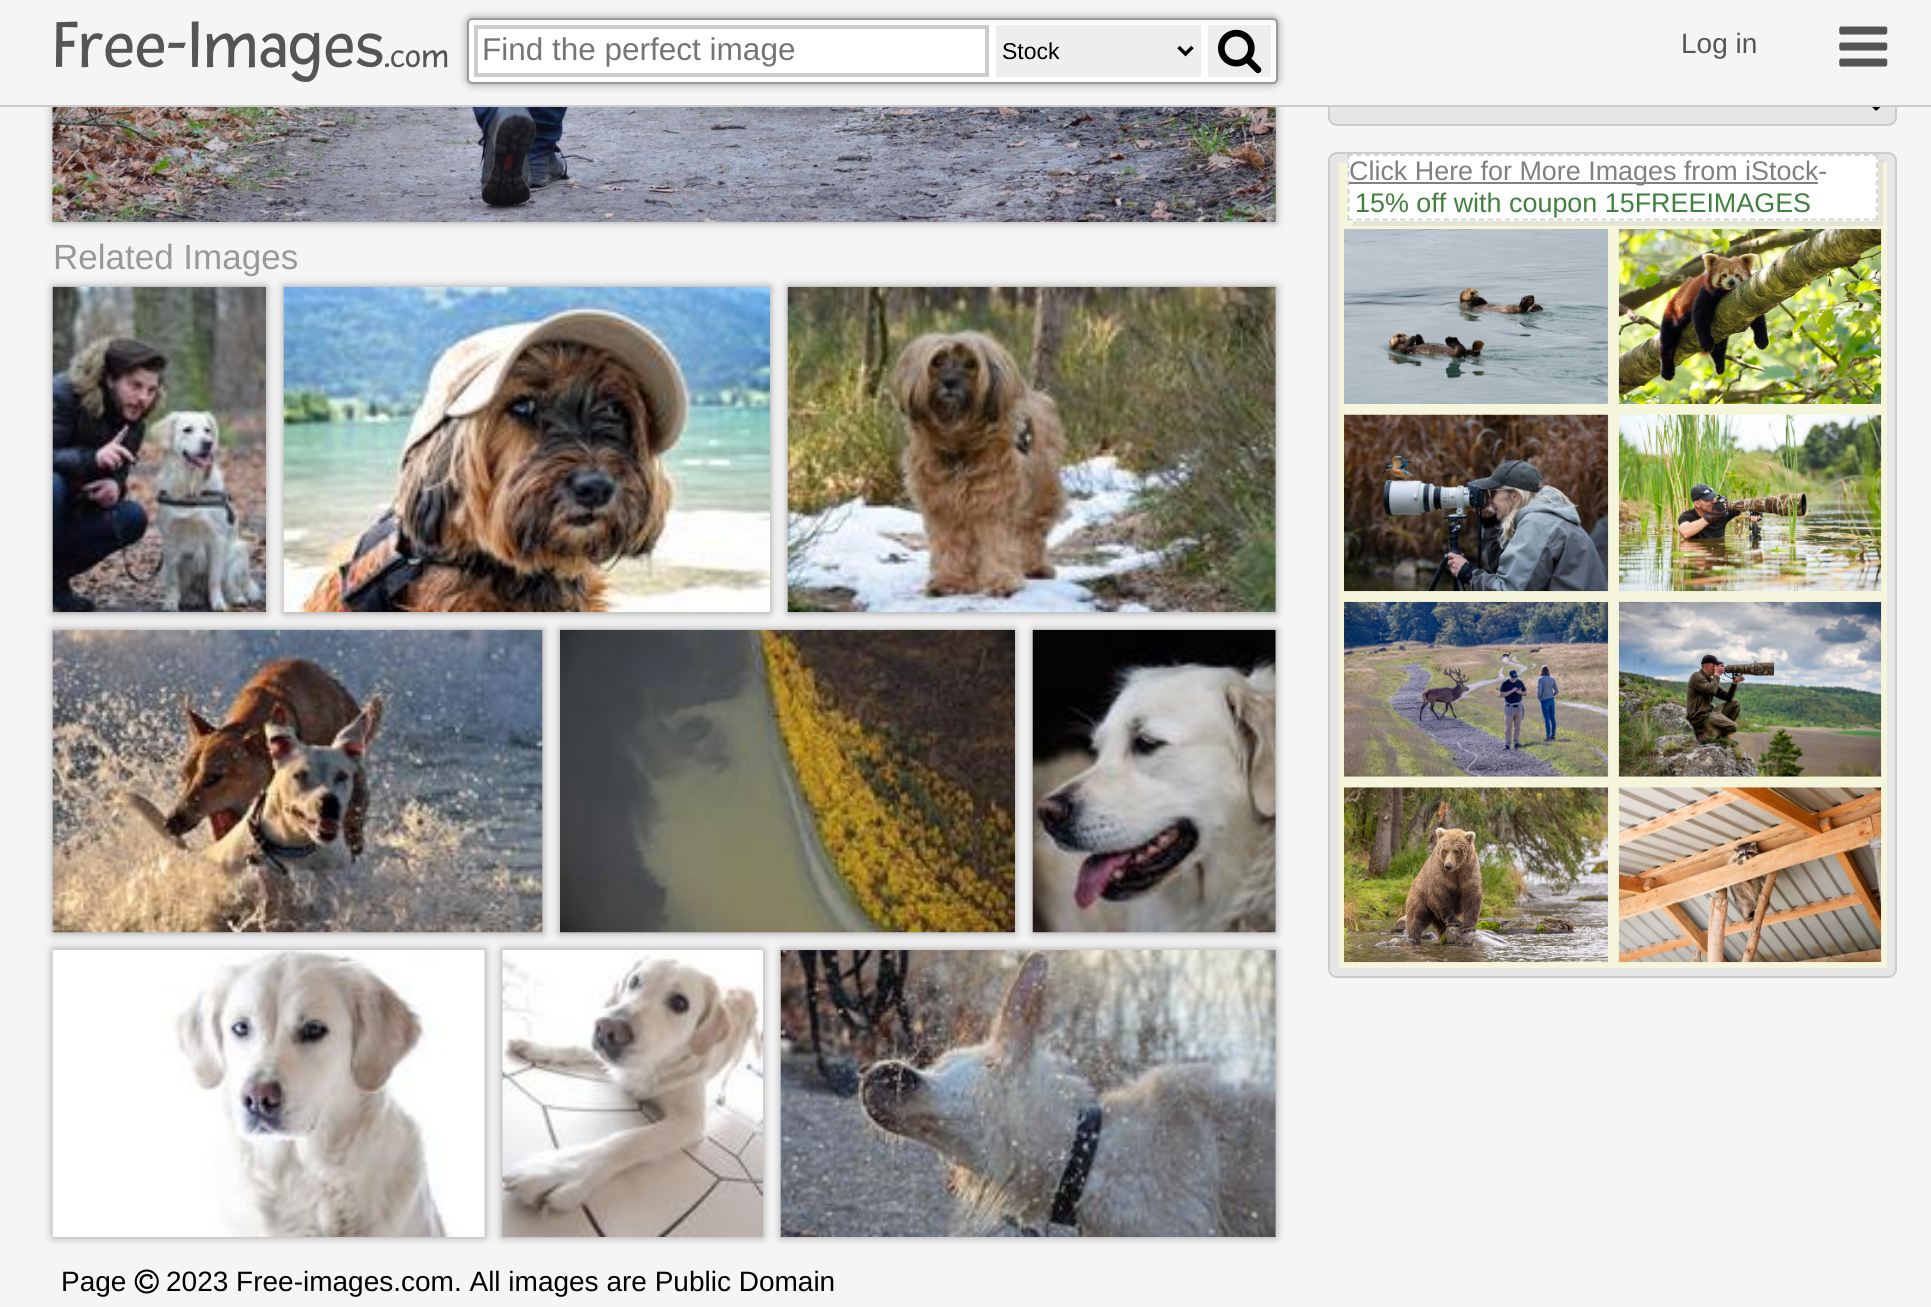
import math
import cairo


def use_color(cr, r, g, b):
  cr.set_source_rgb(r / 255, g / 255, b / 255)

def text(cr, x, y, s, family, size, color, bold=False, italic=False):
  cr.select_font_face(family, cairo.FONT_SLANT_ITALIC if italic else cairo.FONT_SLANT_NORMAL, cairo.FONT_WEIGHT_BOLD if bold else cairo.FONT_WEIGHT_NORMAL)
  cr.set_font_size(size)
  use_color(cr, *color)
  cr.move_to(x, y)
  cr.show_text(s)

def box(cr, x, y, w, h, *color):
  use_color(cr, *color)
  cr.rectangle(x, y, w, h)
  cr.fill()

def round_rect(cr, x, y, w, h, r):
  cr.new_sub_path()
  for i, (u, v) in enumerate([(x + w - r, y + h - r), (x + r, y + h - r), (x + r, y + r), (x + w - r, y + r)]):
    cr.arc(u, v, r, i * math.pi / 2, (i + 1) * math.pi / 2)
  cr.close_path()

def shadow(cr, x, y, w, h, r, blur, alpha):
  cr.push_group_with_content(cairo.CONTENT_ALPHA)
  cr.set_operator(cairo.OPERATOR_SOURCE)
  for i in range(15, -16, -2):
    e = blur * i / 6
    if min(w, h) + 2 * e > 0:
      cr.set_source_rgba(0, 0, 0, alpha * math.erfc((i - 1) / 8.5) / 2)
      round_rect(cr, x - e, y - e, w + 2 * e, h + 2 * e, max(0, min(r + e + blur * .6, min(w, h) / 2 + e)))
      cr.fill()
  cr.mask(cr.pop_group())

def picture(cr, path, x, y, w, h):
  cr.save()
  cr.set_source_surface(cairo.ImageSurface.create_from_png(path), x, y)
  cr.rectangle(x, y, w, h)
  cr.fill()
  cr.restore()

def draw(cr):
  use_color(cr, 245, 245, 245)
  cr.paint()
  use_color(cr, 230, 230, 230)
  round_rect(cr, 1329, 80, 567, 45, 8)
  cr.fill_preserve()
  use_color(cr, 204, 204, 204)
  cr.stroke()
  use_color(cr, 153, 153, 153)
  shadow(cr, 53, -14, 1223, 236, 0, 4.5, 1)
  box(cr, 44, 0, 1853, 105, 245, 245, 245)
  box(cr, 0, 105, 1931, 2, 204, 204, 204)
  use_color(cr, 153, 153, 153)
  shadow(cr, 467, 18, 811, 66, 5, 4.5, 1)
  use_color(cr, 255, 255, 255)
  round_rect(cr, 468, 19, 809, 64, 4)
  cr.fill_preserve()
  use_color(cr, 153, 153, 153)
  cr.stroke()
  cr.rectangle(476, 27, 511, 48)
  use_color(cr, 204, 204, 204)
  cr.set_line_width(4)
  cr.stroke()
  box(cr, 996, 25, 205, 52, 238, 238, 238)
  cr.new_path()
  cr.move_to(1178.5, 47)
  cr.line_to(1185.5, 54)
  cr.line_to(1192.5, 47)
  use_color(cr, 0, 0, 0)
  cr.set_line_width(3.5)
  cr.stroke()
  box(cr, 1208, 25, 63, 52, 238, 238, 238)
  picture(cr, "img_01.png", 1218, 29, 44, 45)
  picture(cr, "img_02.png", 1839, 26, 49, 41)
  picture(cr, "img_03.png", 1872, 107, 9, 4)
  use_color(cr, 230, 230, 230)
  round_rect(cr, 1329, 153, 567, 824, 8)
  cr.fill_preserve()
  use_color(cr, 204, 204, 204)
  cr.set_line_width(2)
  cr.stroke()
  box(cr, 1339, 163, 548, 805, 245, 245, 220)
  cr.set_source_rgba(0.8, 0.8, 0.8, 0.38)
  cr.new_path()
  cr.move_to(1353, 220)
  cr.line_to(1353, 226)
  cr.line_to(1883, 226)
  cr.line_to(1883, 159)
  cr.line_to(1878, 159)
  cr.line_to(1878, 220)
  cr.close_path()
  cr.fill()
  box(cr, 1348, 154, 530, 67, 255, 255, 255)
  cr.new_path()
  cr.move_to(1347.5, 155)
  cr.line_to(1878, 155)
  use_color(cr, 208, 208, 208)
  cr.set_line_width(1.8)
  cr.set_dash([5.25, 3.5])
  cr.stroke()
  cr.new_path()
  cr.move_to(1877, 154)
  cr.line_to(1877, 220.5)
  cr.stroke()
  cr.new_path()
  cr.move_to(1347.5, 219.5)
  cr.line_to(1878, 219.5)
  cr.stroke()
  cr.new_path()
  cr.move_to(1348.5, 154)
  cr.line_to(1348.5, 220.5)
  cr.stroke()
  box(cr, 1349, 182, 469, 2, 128, 128, 128)
  picture(cr, "img_04.png", 1344, 229, 265, 175)
  picture(cr, "img_05.png", 1618, 229, 264, 175)
  picture(cr, "img_06.png", 1344, 414, 265, 178)
  picture(cr, "img_07.png", 1618, 414, 264, 178)
  picture(cr, "img_08.png", 1344, 601, 265, 176)
  picture(cr, "img_09.png", 1618, 601, 264, 176)
  picture(cr, "img_10.png", 1344, 787, 265, 176)
  picture(cr, "img_11.png", 1618, 787, 264, 176)
  picture(cr, "img_12.png", 52, 107, 1224, 115)
  use_color(cr, 153, 153, 153)
  shadow(cr, 53, 287, 213, 326, 0, 4.5, 1)
  picture(cr, "img_13.png", 52, 286, 214, 327)
  shadow(cr, 284, 287, 486, 326, 0, 4.5, 1)
  picture(cr, "img_14.png", 283, 286, 487, 327)
  shadow(cr, 788, 287, 488, 326, 0, 4.5, 1)
  picture(cr, "img_15.png", 787, 286, 489, 327)
  shadow(cr, 53, 630, 490, 303, 0, 4.5, 1)
  picture(cr, "img_16.png", 52, 629, 491, 304)
  shadow(cr, 560, 630, 455, 303, 0, 4.5, 1)
  picture(cr, "img_17.png", 560, 629, 455, 304)
  shadow(cr, 1033, 630, 243, 303, 0, 4.5, 1)
  picture(cr, "img_18.png", 1032, 629, 244, 304)
  shadow(cr, 53, 950, 432, 287, 0, 4.5, 1)
  picture(cr, "img_19.png", 52, 950, 433, 287)
  shadow(cr, 502, 950, 261, 287, 0, 4.5, 1)
  picture(cr, "img_20.png", 502, 950, 261, 287)
  shadow(cr, 781, 950, 495, 287, 0, 4.5, 1)
  picture(cr, "img_21.png", 780, 950, 496, 287)
  picture(cr, "img_22.png", 134, 1269, 25, 25)
  text(cr, 53, 67, "Free-Images", "Fresca", 70, (85, 85, 85))
  text(cr, 384, 67, ".com", "Fresca", 35, (85, 85, 85))
  text(cr, 482, 60, "Find the perfect image", "Liberation Sans", 31.5, (117, 117, 117))
  text(cr, 1002, 59, "Stock", "Liberation Sans", 23, (0, 0, 0))
  text(cr, 1681, 53, "Log in", "Liberation Sans", 28, (85, 85, 85))
  text(cr, 1349, 180, "Click Here for More Images from iStock-", "Liberation Sans", 26.9, (128, 128, 128))
  text(cr, 1355, 212, "15% off with coupon 15FREEIMAGES", "Liberation Sans", 26.9, (64, 128, 64))
  text(cr, 53, 269, "Related Images", "Liberation Sans", 35, (153, 153, 153))
  text(cr, 61, 1291, "Page", "Liberation Sans", 28, (0, 0, 0))
  text(cr, 166, 1291, "2023 Free-images.com. All images are Public Domain", "Liberation Sans", 28, (0, 0, 0))


surface = cairo.ImageSurface(cairo.FORMAT_RGB24, 1931, 1307)
cr = cairo.Context(surface)
options = cairo.FontOptions()
options.set_hint_metrics(cairo.HINT_METRICS_OFF)
options.set_hint_style(cairo.HINT_STYLE_NONE)
cr.set_font_options(options)
cr.set_miter_limit(4)
draw(cr)
surface.write_to_png("out.png")
